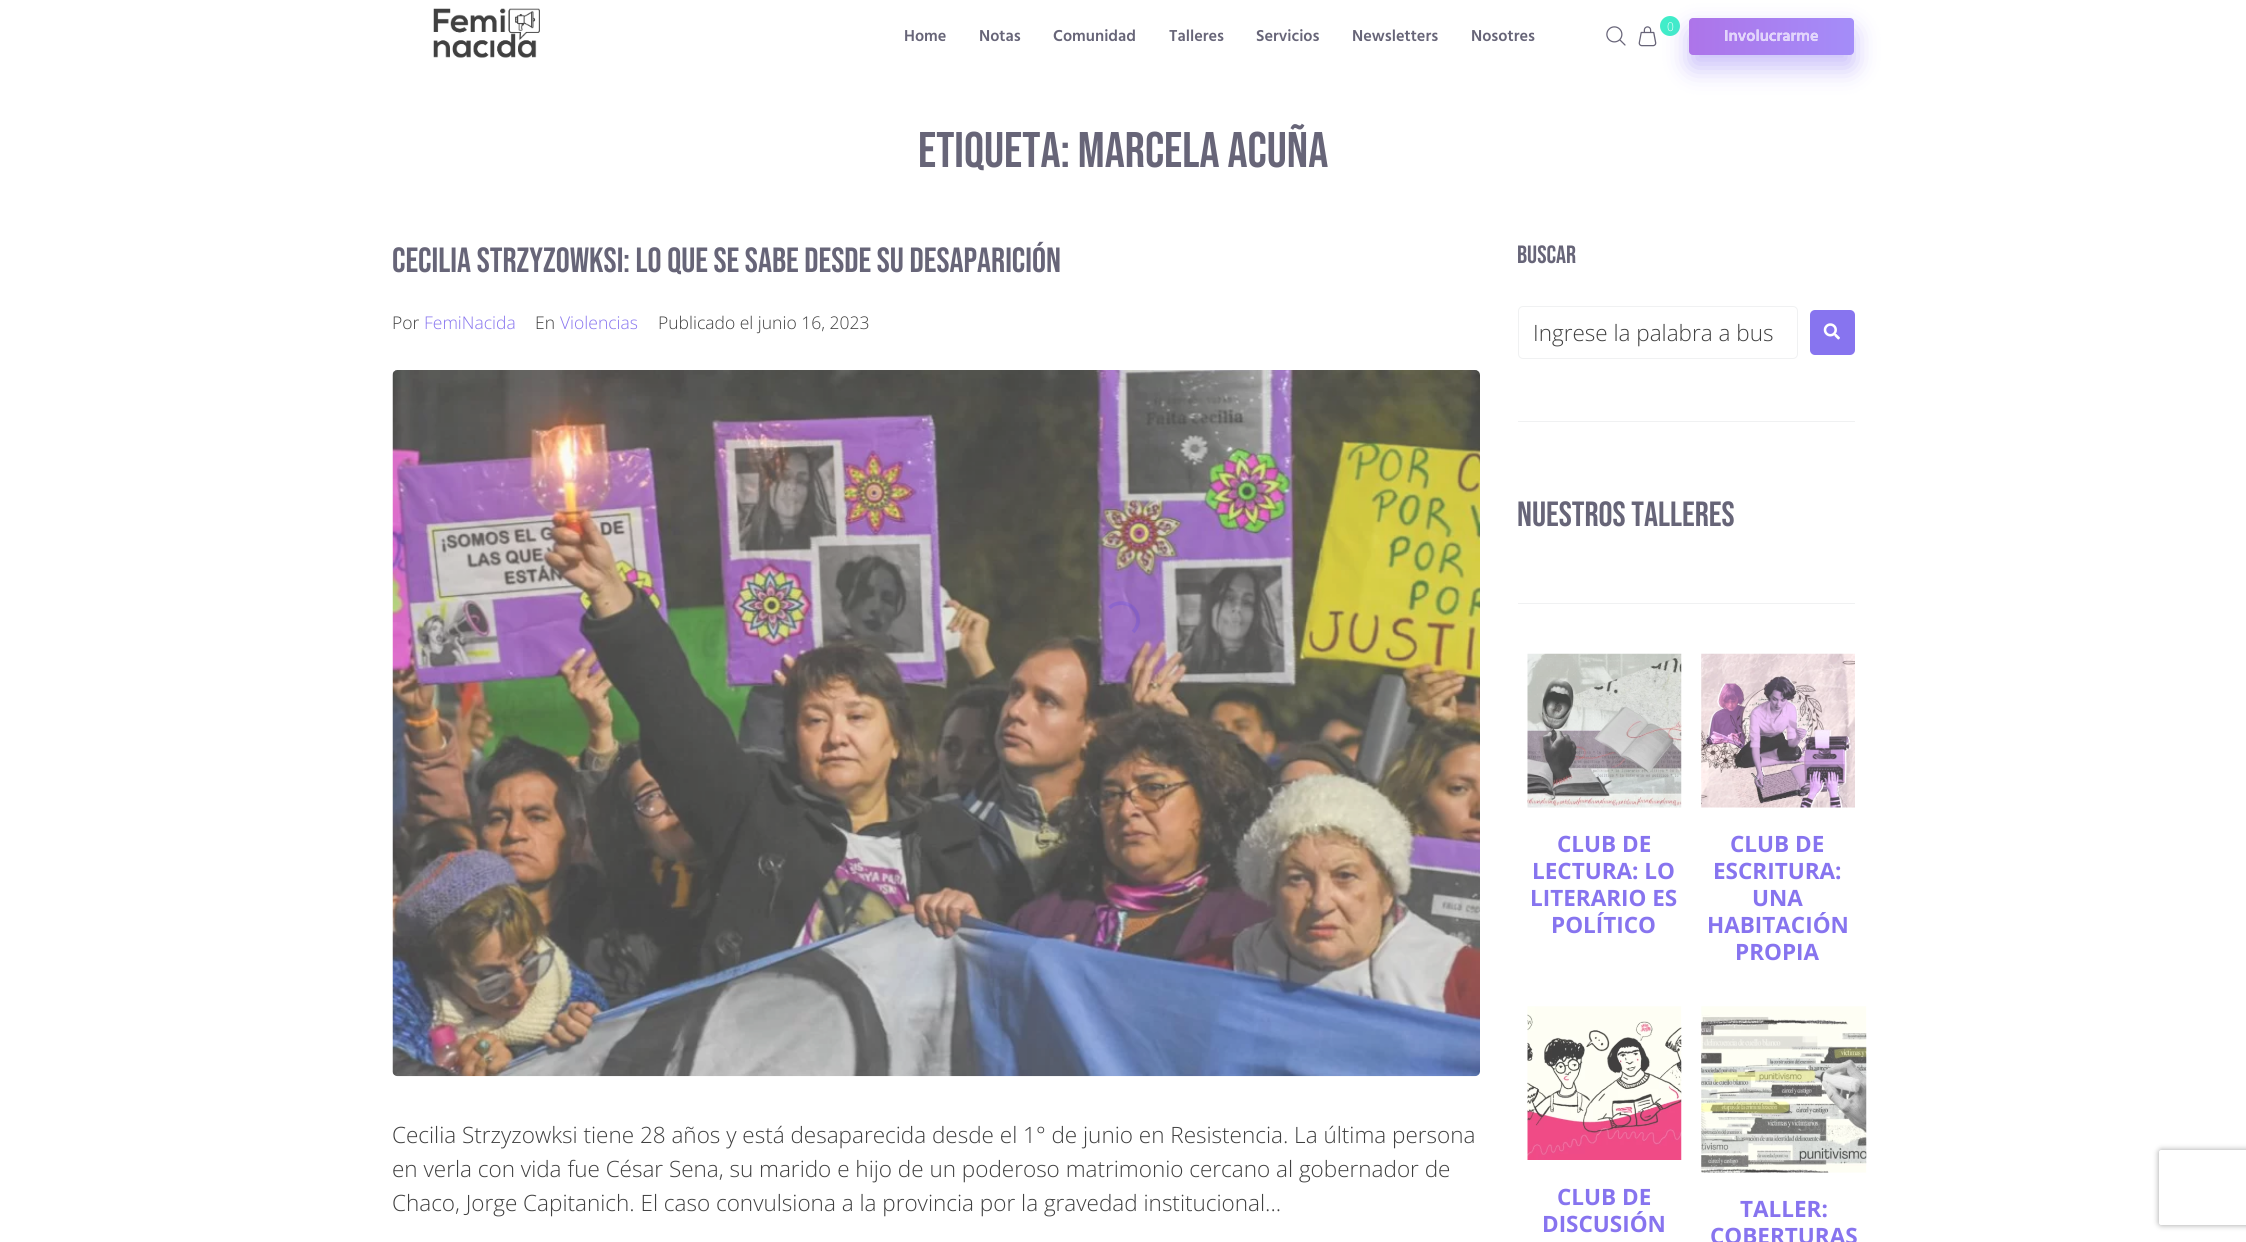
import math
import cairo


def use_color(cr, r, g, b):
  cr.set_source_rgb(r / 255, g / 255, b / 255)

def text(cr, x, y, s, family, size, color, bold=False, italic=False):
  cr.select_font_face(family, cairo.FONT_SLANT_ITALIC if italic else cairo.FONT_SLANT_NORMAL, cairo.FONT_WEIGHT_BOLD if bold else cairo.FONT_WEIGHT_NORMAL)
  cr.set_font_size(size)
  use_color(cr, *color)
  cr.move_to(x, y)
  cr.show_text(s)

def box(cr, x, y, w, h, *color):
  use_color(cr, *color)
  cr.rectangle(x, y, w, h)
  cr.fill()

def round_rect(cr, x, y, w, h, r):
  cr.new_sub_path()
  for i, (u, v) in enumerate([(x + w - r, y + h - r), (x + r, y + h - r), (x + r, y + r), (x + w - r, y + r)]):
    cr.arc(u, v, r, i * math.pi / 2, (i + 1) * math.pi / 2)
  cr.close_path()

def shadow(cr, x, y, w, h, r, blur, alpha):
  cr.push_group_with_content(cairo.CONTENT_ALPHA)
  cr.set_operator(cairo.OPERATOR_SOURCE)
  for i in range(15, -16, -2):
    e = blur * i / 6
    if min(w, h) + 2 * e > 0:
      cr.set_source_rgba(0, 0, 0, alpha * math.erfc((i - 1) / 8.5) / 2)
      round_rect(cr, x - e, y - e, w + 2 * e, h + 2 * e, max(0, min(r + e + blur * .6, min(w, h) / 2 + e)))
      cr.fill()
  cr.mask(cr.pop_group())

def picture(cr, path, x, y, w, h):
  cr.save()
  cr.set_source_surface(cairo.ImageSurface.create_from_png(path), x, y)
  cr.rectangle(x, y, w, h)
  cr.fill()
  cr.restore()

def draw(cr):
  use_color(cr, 255, 255, 255)
  cr.paint()
  picture(cr, "img_01.png", 433, 8, 107, 50)
  picture(cr, "img_02.png", 1606, 26, 20, 20)
  picture(cr, "img_03.png", 1638, 26, 19, 21)
  use_color(cr, 64, 237, 201)
  cr.arc(1670, 26, 10, 0, 2 * math.pi)
  cr.fill()
  use_color(cr, 149, 128, 245)
  shadow(cr, 1689, 30, 165, 38, 4, 12.5, 0.5)
  gradient = cairo.LinearGradient(1689, 36, 1854, 36)
  gradient.add_color_stop_rgba(0, 0.678, 0.455, 0.914, 1)
  gradient.add_color_stop_rgba(1, 0.643, 0.553, 0.976, 1)
  cr.set_source(gradient)
  round_rect(cr, 1689, 18, 165, 37, 4)
  cr.fill()
  picture(cr, "img_04.png", 392, 370, 1088, 707)
  round_rect(cr, 1518.5, 306.5, 279, 52, 4.5)
  use_color(cr, 240, 241, 242)
  cr.set_line_width(1)
  cr.stroke()
  use_color(cr, 135, 116, 239)
  round_rect(cr, 1810, 310, 45, 45, 5)
  cr.fill()
  picture(cr, "img_05.png", 1823, 323, 17, 17)
  box(cr, 1518, 421, 337, 1, 240, 241, 242)
  box(cr, 1518, 603, 337, 1, 240, 241, 242)
  picture(cr, "img_06.png", 1527, 653, 155, 155)
  picture(cr, "img_07.png", 1701, 653, 154, 155)
  picture(cr, "img_08.png", 1527, 1006, 155, 154)
  picture(cr, "img_09.png", 1701, 1006, 166, 167)
  cr.new_path()
  cr.move_to(1109.5, 608)
  cr.curve_to(1111.5, 605.5, 1114.5, 604, 1118, 603.5)
  cr.curve_to(1134, 600, 1145, 620, 1133, 632)
  cr.set_source_rgba(0.373, 0.271, 0.918, 0.25)
  cr.set_line_width(3.8)
  cr.stroke()
  cr.save()
  cr.set_fill_rule(cairo.FILL_RULE_EVEN_ODD)
  cr.new_path()
  cr.move_to(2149, 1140)
  cr.line_to(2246, 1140)
  cr.line_to(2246, 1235)
  cr.line_to(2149, 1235)
  cr.close_path()
  cr.move_to(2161.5, 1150)
  cr.line_to(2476.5, 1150)
  cr.curve_to(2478, 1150, 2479, 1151, 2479, 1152.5)
  cr.line_to(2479, 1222.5)
  cr.curve_to(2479, 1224, 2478, 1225, 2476.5, 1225)
  cr.line_to(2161.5, 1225)
  cr.curve_to(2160, 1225, 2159, 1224, 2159, 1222.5)
  cr.line_to(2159, 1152.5)
  cr.curve_to(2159, 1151, 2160, 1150, 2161.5, 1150)
  cr.close_path()
  cr.clip()
  use_color(cr, 160, 160, 160)
  shadow(cr, 2159, 1150, 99, 75, 2.5, 3, 1)
  cr.restore()
  text(cr, 904, 41, "Home", "Hind SemiBold", 16.25, (103, 101, 120))
  text(cr, 979, 41, "Notas", "Hind SemiBold", 16.25, (103, 101, 120))
  text(cr, 1053, 41, "Comunidad", "Hind SemiBold", 16.25, (103, 101, 120))
  text(cr, 1169, 41, "Talleres", "Hind SemiBold", 16.25, (103, 101, 120))
  text(cr, 1256, 41, "Servicios", "Hind SemiBold", 16.25, (103, 101, 120))
  text(cr, 1352, 41, "Newsletters", "Hind SemiBold", 16.25, (103, 101, 120))
  text(cr, 1471, 41, "Nosotres", "Hind SemiBold", 16.25, (103, 101, 120))
  text(cr, 1667, 31, "0", "Open Sans Light", 12, (255, 255, 255))
  text(cr, 1724, 41, "Involucrarme", "Hind SemiBold", 16.25, (255, 255, 255))
  text(cr, 1724, 41, "Involucrarme", "Hind SemiBold", 16.25, (225, 212, 251))
  text(cr, 918, 167, "Etiqueta: Marcela Acuña", "Bebas Neue", 50, (103, 101, 120))
  text(cr, 392, 272, "Cecilia Strzyzowksi: lo que se sabe desde su desaparición", "Bebas Neue", 35, (103, 101, 120))
  text(cr, 392, 329, "Por", "Open Sans Light", 17.5, (64, 64, 64))
  text(cr, 424, 329, "FemiNacida", "Open Sans Light", 17.5, (135, 116, 239))
  text(cr, 535, 329, "En", "Open Sans Light", 17.5, (64, 64, 64))
  text(cr, 560, 329, "Violencias", "Open Sans Light", 17.5, (135, 116, 239))
  text(cr, 658, 329, "Publicado el junio 16, 2023", "Open Sans Light", 17.5, (64, 64, 64))
  text(cr, 392, 1143, "Cecilia Strzyzowksi tiene 28 años y está desaparecida desde el 1° de junio en Resistencia. La última persona", "Open Sans Light", 22.5, (64, 64, 64))
  text(cr, 392, 1177, "en verla con vida fue César Sena, su marido e hijo de un poderoso matrimonio cercano al gobernador de", "Open Sans Light", 22.5, (64, 64, 64))
  text(cr, 392, 1211, "Chaco, Jorge Capitanich. El caso convulsiona a la provincia por la gravedad institucional...", "Open Sans Light", 22.5, (64, 64, 64))
  text(cr, 1517, 263, "BUSCAR", "Bebas Neue", 25, (103, 101, 120))
  text(cr, 1533, 341, "Ingrese la palabra a bus", "Open Sans Light", 22.5, (64, 64, 64))
  text(cr, 1517, 526, "NUESTROS TALLERES", "Bebas Neue", 35, (103, 101, 120))
  text(cr, 1557, 852, "CLUB DE", "Open Sans", 22.5, (135, 116, 239), bold=True)
  text(cr, 1532, 879, "LECTURA: LO", "Open Sans", 22.5, (135, 116, 239), bold=True)
  text(cr, 1530, 906, "LITERARIO ES", "Open Sans", 22.5, (135, 116, 239), bold=True)
  text(cr, 1551, 933, "POLÍTICO", "Open Sans", 22.5, (135, 116, 239), bold=True)
  text(cr, 1730, 852, "CLUB DE", "Open Sans", 22.5, (135, 116, 239), bold=True)
  text(cr, 1713, 879, "ESCRITURA:", "Open Sans", 22.5, (135, 116, 239), bold=True)
  text(cr, 1752, 906, "UNA", "Open Sans", 22.5, (135, 116, 239), bold=True)
  text(cr, 1707, 933, "HABITACIÓN", "Open Sans", 22.5, (135, 116, 239), bold=True)
  text(cr, 1735, 960, "PROPIA", "Open Sans", 22.5, (135, 116, 239), bold=True)
  text(cr, 1557, 1205, "CLUB DE", "Open Sans", 22.5, (135, 116, 239), bold=True)
  text(cr, 1542, 1232, "DISCUSIÓN", "Open Sans", 22.5, (135, 116, 239), bold=True)
  text(cr, 1740, 1217, "TALLER:", "Open Sans", 22.5, (135, 116, 239), bold=True)
  text(cr, 1710, 1244, "COBERTURAS", "Open Sans", 22.5, (135, 116, 239), bold=True)


surface = cairo.ImageSurface(cairo.FORMAT_RGB24, 2246, 1242)
cr = cairo.Context(surface)
options = cairo.FontOptions()
options.set_hint_metrics(cairo.HINT_METRICS_OFF)
options.set_hint_style(cairo.HINT_STYLE_NONE)
cr.set_font_options(options)
cr.set_miter_limit(4)
draw(cr)
surface.write_to_png("out.png")
